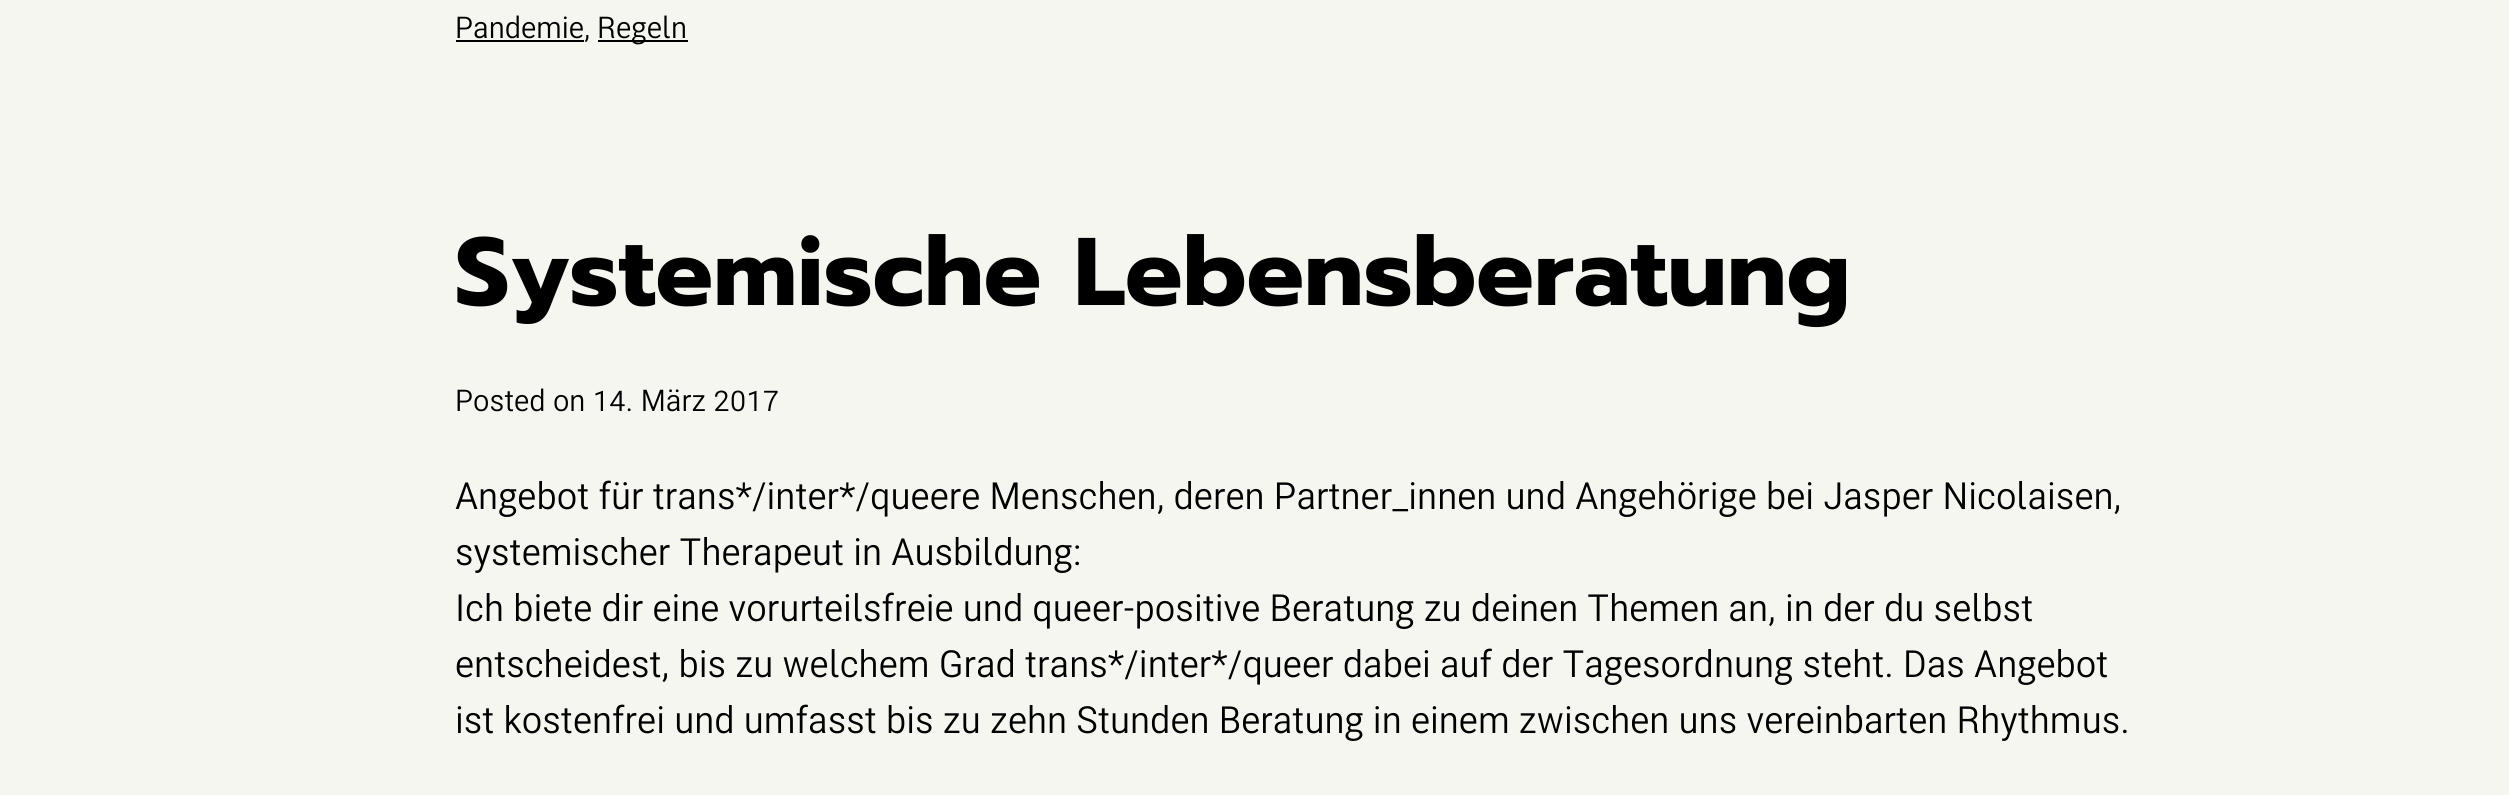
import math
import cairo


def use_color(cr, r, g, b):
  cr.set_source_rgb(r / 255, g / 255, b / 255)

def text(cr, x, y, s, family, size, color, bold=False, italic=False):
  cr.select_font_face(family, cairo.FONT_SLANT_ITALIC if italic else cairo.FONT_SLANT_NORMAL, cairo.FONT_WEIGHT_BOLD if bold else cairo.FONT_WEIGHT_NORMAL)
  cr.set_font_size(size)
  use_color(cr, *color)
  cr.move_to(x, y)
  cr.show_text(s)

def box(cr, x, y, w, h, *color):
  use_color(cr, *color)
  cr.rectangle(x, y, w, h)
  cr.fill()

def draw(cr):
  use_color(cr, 245, 246, 240)
  cr.paint()
  box(cr, 456, 40, 128, 2, 0, 0, 0)
  box(cr, 598, 40, 90, 2, 0, 0, 0)
  text(cr, 455, 38, "Pandemie,", "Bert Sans", 29.9, (0, 0, 0))
  text(cr, 597, 38, "Regeln", "Bert Sans", 29.9, (0, 0, 0))
  text(cr, 455, 305, "Systemische Lebensberatung", "Prompt", 96, (0, 0, 0), bold=True)
  text(cr, 455, 411, "Posted on 14. März 2017", "Bert Sans", 29.9, (0, 0, 0))
  text(cr, 455, 509, "Angebot für trans*/inter*/queere Menschen, deren Partner_innen und Angehörige bei Jasper Nicolaisen,", "Bert Sans", 37.35, (0, 0, 0))
  text(cr, 455, 565, "systemischer Therapeut in Ausbildung:", "Bert Sans", 37.35, (0, 0, 0))
  text(cr, 455, 621, "Ich biete dir eine vorurteilsfreie und queer-positive Beratung zu deinen Themen an, in der du selbst", "Bert Sans", 37.35, (0, 0, 0))
  text(cr, 455, 677, "entscheidest, bis zu welchem Grad trans*/inter*/queer dabei auf der Tagesordnung steht. Das Angebot", "Bert Sans", 37.35, (0, 0, 0))
  text(cr, 455, 733, "ist kostenfrei und umfasst bis zu zehn Stunden Beratung in einem zwischen uns vereinbarten Rhythmus.", "Bert Sans", 37.35, (0, 0, 0))


surface = cairo.ImageSurface(cairo.FORMAT_RGB24, 2509, 795)
cr = cairo.Context(surface)
options = cairo.FontOptions()
options.set_hint_metrics(cairo.HINT_METRICS_OFF)
options.set_hint_style(cairo.HINT_STYLE_NONE)
cr.set_font_options(options)
cr.set_miter_limit(4)
draw(cr)
surface.write_to_png("out.png")
